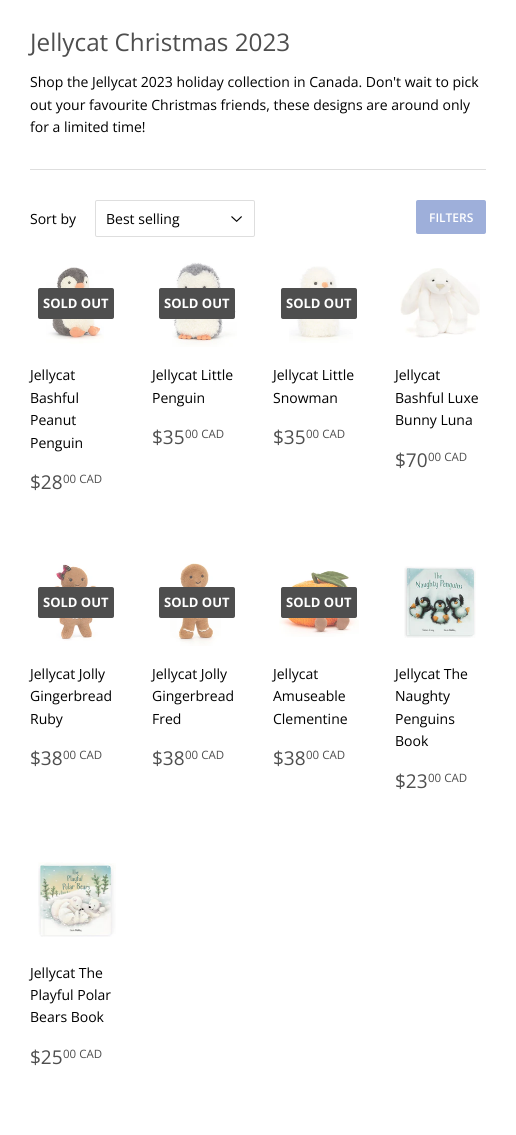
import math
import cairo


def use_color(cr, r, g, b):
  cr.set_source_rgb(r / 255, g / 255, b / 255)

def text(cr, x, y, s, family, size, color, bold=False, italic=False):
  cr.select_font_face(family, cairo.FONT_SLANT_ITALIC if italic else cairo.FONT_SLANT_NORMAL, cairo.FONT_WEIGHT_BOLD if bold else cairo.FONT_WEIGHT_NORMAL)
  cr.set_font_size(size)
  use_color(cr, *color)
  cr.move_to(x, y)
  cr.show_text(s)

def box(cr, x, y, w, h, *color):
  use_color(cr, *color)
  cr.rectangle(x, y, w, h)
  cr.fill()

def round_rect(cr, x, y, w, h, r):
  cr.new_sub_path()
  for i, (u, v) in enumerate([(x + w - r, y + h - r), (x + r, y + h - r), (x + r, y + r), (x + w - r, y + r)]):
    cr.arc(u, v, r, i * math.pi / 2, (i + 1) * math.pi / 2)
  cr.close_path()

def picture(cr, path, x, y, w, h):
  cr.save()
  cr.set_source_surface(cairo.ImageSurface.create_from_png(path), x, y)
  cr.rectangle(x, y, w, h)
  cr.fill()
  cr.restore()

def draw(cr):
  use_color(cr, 255, 255, 255)
  cr.paint()
  box(cr, 30, 169, 456, 1, 222, 222, 222)
  picture(cr, "img_01.png", 231, 216, 11, 6)
  round_rect(cr, 95.5, 200.5, 159, 36, 1.5)
  cr.set_line_width(1)
  cr.stroke()
  use_color(cr, 158, 175, 218)
  round_rect(cr, 416, 200, 70, 34, 2)
  cr.fill()
  picture(cr, "img_02.png", 46, 267, 58, 77)
  use_color(cr, 78, 78, 78)
  round_rect(cr, 38, 288, 76, 31, 2)
  cr.fill()
  picture(cr, "img_03.png", 164, 262, 73, 85)
  round_rect(cr, 159, 288, 76, 31, 2)
  cr.fill()
  picture(cr, "img_04.png", 289, 266, 64, 77)
  round_rect(cr, 281, 288, 76, 31, 2)
  cr.fill()
  picture(cr, "img_05.png", 400, 268, 80, 70)
  picture(cr, "img_06.png", 52, 564, 46, 77)
  round_rect(cr, 38, 587, 76, 31, 2)
  cr.fill()
  picture(cr, "img_07.png", 170, 563, 51, 83)
  round_rect(cr, 159, 587, 76, 31, 2)
  cr.fill()
  picture(cr, "img_08.png", 279, 571, 80, 66)
  round_rect(cr, 281, 587, 76, 31, 2)
  cr.fill()
  picture(cr, "img_09.png", 404, 566, 72, 72)
  picture(cr, "img_10.png", 38, 862, 78, 75)
  text(cr, 30, 51, "Jellycat Christmas 2023", "Open Sans", 24.25, (78, 78, 78))
  text(cr, 30, 87, "Shop the Jellycat 2023 holiday collection in Canada. Don't wait to pick", "Open Sans", 14, (0, 0, 0))
  text(cr, 30, 110, "out your favourite Christmas friends, these designs are around only", "Open Sans", 14, (0, 0, 0))
  text(cr, 30, 132, "for a limited time!", "Open Sans", 14, (0, 0, 0))
  text(cr, 30, 224, "Sort by", "Open Sans", 14, (0, 0, 0))
  text(cr, 106, 224, "Best selling", "Open Sans", 14, (0, 0, 0))
  text(cr, 429, 222, "FILTERS", "Open Sans SemiBold", 12, (255, 255, 255))
  text(cr, 43, 308, "SOLD OUT", "Open Sans", 13, (255, 255, 255), bold=True)
  text(cr, 30, 380, "Jellycat", "Open Sans", 14, (0, 0, 0))
  text(cr, 30, 403, "Bashful", "Open Sans", 14, (0, 0, 0))
  text(cr, 30, 425, "Peanut", "Open Sans", 14, (0, 0, 0))
  text(cr, 30, 448, "Penguin", "Open Sans", 14, (0, 0, 0))
  text(cr, 30, 489, "$28", "Open Sans", 19, (78, 78, 78))
  text(cr, 63, 483, "00 CAD", "Open Sans", 11.5, (78, 78, 78))
  text(cr, 164, 308, "SOLD OUT", "Open Sans", 13, (255, 255, 255), bold=True)
  text(cr, 152, 380, "Jellycat Little", "Open Sans", 14, (0, 0, 0))
  text(cr, 152, 403, "Penguin", "Open Sans", 14, (0, 0, 0))
  text(cr, 152, 444, "$35", "Open Sans", 19, (78, 78, 78))
  text(cr, 185, 438, "00 CAD", "Open Sans", 11.5, (78, 78, 78))
  text(cr, 286, 308, "SOLD OUT", "Open Sans", 13, (255, 255, 255), bold=True)
  text(cr, 273, 380, "Jellycat Little", "Open Sans", 14, (0, 0, 0))
  text(cr, 273, 403, "Snowman", "Open Sans", 14, (0, 0, 0))
  text(cr, 273, 444, "$35", "Open Sans", 19, (78, 78, 78))
  text(cr, 306, 438, "00 CAD", "Open Sans", 11.5, (78, 78, 78))
  text(cr, 395, 380, "Jellycat", "Open Sans", 14, (0, 0, 0))
  text(cr, 395, 403, "Bashful Luxe", "Open Sans", 14, (0, 0, 0))
  text(cr, 395, 425, "Bunny Luna", "Open Sans", 14, (0, 0, 0))
  text(cr, 395, 467, "$70", "Open Sans", 19, (78, 78, 78))
  text(cr, 428, 461, "00 CAD", "Open Sans", 11.5, (78, 78, 78))
  text(cr, 43, 607, "SOLD OUT", "Open Sans", 13, (255, 255, 255), bold=True)
  text(cr, 30, 679, "Jellycat Jolly", "Open Sans", 14, (0, 0, 0))
  text(cr, 30, 701, "Gingerbread", "Open Sans", 14, (0, 0, 0))
  text(cr, 30, 724, "Ruby", "Open Sans", 14, (0, 0, 0))
  text(cr, 30, 765, "$38", "Open Sans", 19, (78, 78, 78))
  text(cr, 63, 759, "00 CAD", "Open Sans", 11.5, (78, 78, 78))
  text(cr, 164, 607, "SOLD OUT", "Open Sans", 13, (255, 255, 255), bold=True)
  text(cr, 152, 679, "Jellycat Jolly", "Open Sans", 14, (0, 0, 0))
  text(cr, 152, 701, "Gingerbread", "Open Sans", 14, (0, 0, 0))
  text(cr, 152, 724, "Fred", "Open Sans", 14, (0, 0, 0))
  text(cr, 152, 765, "$38", "Open Sans", 19, (78, 78, 78))
  text(cr, 185, 759, "00 CAD", "Open Sans", 11.5, (78, 78, 78))
  text(cr, 286, 607, "SOLD OUT", "Open Sans", 13, (255, 255, 255), bold=True)
  text(cr, 273, 679, "Jellycat", "Open Sans", 14, (0, 0, 0))
  text(cr, 273, 701, "Amuseable", "Open Sans", 14, (0, 0, 0))
  text(cr, 273, 724, "Clementine", "Open Sans", 14, (0, 0, 0))
  text(cr, 273, 765, "$38", "Open Sans", 19, (78, 78, 78))
  text(cr, 306, 759, "00 CAD", "Open Sans", 11.5, (78, 78, 78))
  text(cr, 395, 679, "Jellycat The", "Open Sans", 14, (0, 0, 0))
  text(cr, 395, 701, "Naughty", "Open Sans", 14, (0, 0, 0))
  text(cr, 395, 724, "Penguins", "Open Sans", 14, (0, 0, 0))
  text(cr, 395, 746, "Book", "Open Sans", 14, (0, 0, 0))
  text(cr, 395, 788, "$23", "Open Sans", 19, (78, 78, 78))
  text(cr, 428, 782, "00 CAD", "Open Sans", 11.5, (78, 78, 78))
  text(cr, 30, 978, "Jellycat The", "Open Sans", 14, (0, 0, 0))
  text(cr, 30, 1000, "Playful Polar", "Open Sans", 14, (0, 0, 0))
  text(cr, 30, 1022, "Bears Book", "Open Sans", 14, (0, 0, 0))
  text(cr, 30, 1064, "$25", "Open Sans", 19, (78, 78, 78))
  text(cr, 63, 1058, "00 CAD", "Open Sans", 11.5, (78, 78, 78))


surface = cairo.ImageSurface(cairo.FORMAT_RGB24, 516, 1135)
cr = cairo.Context(surface)
options = cairo.FontOptions()
options.set_hint_metrics(cairo.HINT_METRICS_OFF)
options.set_hint_style(cairo.HINT_STYLE_NONE)
cr.set_font_options(options)
cr.set_miter_limit(4)
draw(cr)
surface.write_to_png("out.png")
